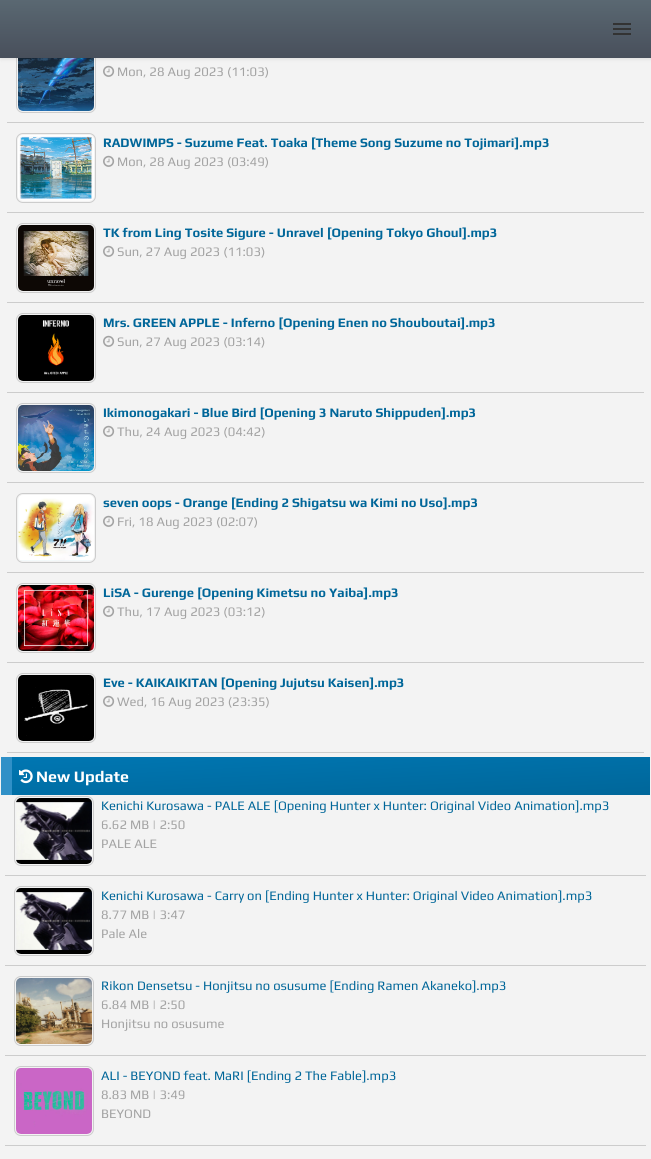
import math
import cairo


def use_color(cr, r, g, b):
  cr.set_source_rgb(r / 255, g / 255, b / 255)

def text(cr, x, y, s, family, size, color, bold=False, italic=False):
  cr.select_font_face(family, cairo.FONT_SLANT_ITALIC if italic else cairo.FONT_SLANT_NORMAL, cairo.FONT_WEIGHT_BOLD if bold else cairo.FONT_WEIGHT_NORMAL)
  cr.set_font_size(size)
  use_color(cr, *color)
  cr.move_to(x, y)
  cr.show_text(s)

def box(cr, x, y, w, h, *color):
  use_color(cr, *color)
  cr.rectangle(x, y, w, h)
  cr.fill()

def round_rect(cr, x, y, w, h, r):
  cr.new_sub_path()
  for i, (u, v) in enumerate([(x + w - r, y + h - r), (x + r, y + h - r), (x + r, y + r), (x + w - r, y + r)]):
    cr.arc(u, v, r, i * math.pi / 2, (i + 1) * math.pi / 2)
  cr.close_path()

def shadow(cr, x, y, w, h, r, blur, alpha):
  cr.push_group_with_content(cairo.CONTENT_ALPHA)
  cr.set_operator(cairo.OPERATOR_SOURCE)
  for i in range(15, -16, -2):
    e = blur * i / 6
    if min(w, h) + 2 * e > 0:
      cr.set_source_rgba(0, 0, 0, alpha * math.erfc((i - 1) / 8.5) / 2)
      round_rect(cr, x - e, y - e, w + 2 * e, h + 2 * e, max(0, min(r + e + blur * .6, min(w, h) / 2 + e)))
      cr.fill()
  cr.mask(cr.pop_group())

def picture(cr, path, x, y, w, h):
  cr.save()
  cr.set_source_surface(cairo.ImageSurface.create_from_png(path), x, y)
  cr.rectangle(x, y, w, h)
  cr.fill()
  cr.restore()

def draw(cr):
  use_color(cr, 243, 243, 243)
  cr.paint()
  round_rect(cr, 16.5, 43.5, 79, 69, 6.5)
  use_color(cr, 204, 204, 204)
  cr.set_line_width(1)
  cr.stroke()
  picture(cr, "img_01.png", 18, 58, 76, 53)
  picture(cr, "img_02.png", 103, 65, 12, 12)
  use_color(cr, 0, 0, 0)
  shadow(cr, 1, 1, 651, 58, 0, 2, 0.1)
  gradient = cairo.LinearGradient(326, 0, 326, 58)
  gradient.add_color_stop_rgba(0, 0.353, 0.408, 0.447, 1)
  gradient.add_color_stop_rgba(1, 0.282, 0.31, 0.357, 1)
  cr.set_source(gradient)
  cr.rectangle(0, 0, 651, 58)
  cr.fill()
  box(cr, 613, 28, 18, 2, 51, 51, 51)
  box(cr, 613, 23, 18, 2, 51, 51, 51)
  box(cr, 613, 33, 18, 2, 51, 51, 51)
  box(cr, 7, 122, 637, 1, 204, 204, 204)
  box(cr, 7, 212, 637, 1, 204, 204, 204)
  round_rect(cr, 16.5, 133.5, 79, 69, 6.5)
  cr.stroke()
  picture(cr, "img_03.png", 18, 135, 76, 66)
  picture(cr, "img_02.png", 103, 155, 12, 12)
  box(cr, 7, 302, 637, 1, 204, 204, 204)
  round_rect(cr, 16.5, 223.5, 79, 69, 6.5)
  cr.stroke()
  picture(cr, "img_04.png", 18, 225, 76, 66)
  picture(cr, "img_02.png", 103, 245, 12, 12)
  box(cr, 7, 392, 637, 1, 204, 204, 204)
  round_rect(cr, 16.5, 313.5, 79, 69, 6.5)
  cr.stroke()
  picture(cr, "img_05.png", 18, 315, 76, 66)
  picture(cr, "img_02.png", 103, 335, 12, 12)
  box(cr, 7, 482, 637, 1, 204, 204, 204)
  round_rect(cr, 16.5, 403.5, 79, 69, 6.5)
  cr.stroke()
  picture(cr, "img_06.png", 18, 405, 76, 66)
  picture(cr, "img_02.png", 103, 425, 12, 12)
  box(cr, 7, 572, 637, 1, 204, 204, 204)
  round_rect(cr, 16.5, 493.5, 79, 69, 6.5)
  cr.stroke()
  picture(cr, "img_07.png", 18, 495, 76, 66)
  picture(cr, "img_02.png", 103, 515, 12, 12)
  box(cr, 7, 662, 637, 1, 204, 204, 204)
  round_rect(cr, 16.5, 583.5, 79, 69, 6.5)
  cr.stroke()
  picture(cr, "img_08.png", 18, 585, 76, 66)
  picture(cr, "img_02.png", 103, 605, 12, 12)
  box(cr, 7, 752, 637, 1, 204, 204, 204)
  round_rect(cr, 16.5, 673.5, 79, 69, 6.5)
  cr.stroke()
  picture(cr, "img_09.png", 18, 675, 76, 66)
  picture(cr, "img_02.png", 103, 695, 12, 12)
  gradient = cairo.LinearGradient(329, 738, 333, 814)
  gradient.add_color_stop_rgba(0, 0, 0.467, 0.702, 1)
  gradient.add_color_stop_rgba(1, 0, 0.4, 0.6, 1)
  cr.set_source(gradient)
  cr.rectangle(12, 757, 638, 38)
  cr.fill()
  box(cr, 1, 757, 11, 38, 48, 144, 199)
  picture(cr, "img_10.png", 19, 769, 14, 15)
  box(cr, 5, 875, 641, 1, 204, 204, 204)
  round_rect(cr, 14.5, 796.5, 79, 69, 6.5)
  cr.stroke()
  picture(cr, "img_11.png", 16, 798, 76, 66)
  box(cr, 5, 965, 641, 1, 204, 204, 204)
  round_rect(cr, 14.5, 886.5, 79, 69, 6.5)
  cr.stroke()
  picture(cr, "img_12.png", 16, 888, 76, 66)
  box(cr, 5, 1055, 641, 1, 204, 204, 204)
  round_rect(cr, 14.5, 976.5, 79, 69, 6.5)
  cr.stroke()
  picture(cr, "img_13.png", 16, 978, 76, 66)
  box(cr, 5, 1145, 641, 1, 204, 204, 204)
  round_rect(cr, 14.5, 1066.5, 79, 69, 6.5)
  cr.stroke()
  picture(cr, "img_14.png", 16, 1068, 76, 66)
  text(cr, 117, 76, "Mon, 28 Aug 2023 (11:03)", "Play", 13, (163, 163, 163))
  text(cr, 103, 147, "RADWIMPS - Suzume Feat. Toaka [Theme Song Suzume no Tojimari].mp3", "Play", 13, (0, 102, 153), bold=True)
  text(cr, 117, 166, "Mon, 28 Aug 2023 (03:49)", "Play", 13, (163, 163, 163))
  text(cr, 103, 237, "TK from Ling Tosite Sigure - Unravel [Opening Tokyo Ghoul].mp3", "Play", 13, (0, 102, 153), bold=True)
  text(cr, 117, 256, "Sun, 27 Aug 2023 (11:03)", "Play", 13, (163, 163, 163))
  text(cr, 103, 327, "Mrs. GREEN APPLE - Inferno [Opening Enen no Shouboutai].mp3", "Play", 13, (0, 102, 153), bold=True)
  text(cr, 117, 346, "Sun, 27 Aug 2023 (03:14)", "Play", 13, (163, 163, 163))
  text(cr, 103, 417, "Ikimonogakari - Blue Bird [Opening 3 Naruto Shippuden].mp3", "Play", 13, (0, 102, 153), bold=True)
  text(cr, 117, 436, "Thu, 24 Aug 2023 (04:42)", "Play", 13, (163, 163, 163))
  text(cr, 103, 507, "seven oops - Orange [Ending 2 Shigatsu wa Kimi no Uso].mp3", "Play", 13, (0, 102, 153), bold=True)
  text(cr, 117, 526, "Fri, 18 Aug 2023 (02:07)", "Play", 13, (163, 163, 163))
  text(cr, 103, 597, "LiSA - Gurenge [Opening Kimetsu no Yaiba].mp3", "Play", 13, (0, 102, 153), bold=True)
  text(cr, 117, 616, "Thu, 17 Aug 2023 (03:12)", "Play", 13, (163, 163, 163))
  text(cr, 103, 687, "Eve - KAIKAIKITAN [Opening Jujutsu Kaisen].mp3", "Play", 13, (0, 102, 153), bold=True)
  text(cr, 117, 706, "Wed, 16 Aug 2023 (23:35)", "Play", 13, (163, 163, 163))
  text(cr, 36, 782, "New Update", "Play", 16, (255, 255, 255), bold=True)
  text(cr, 101, 810, "Kenichi Kurosawa - PALE ALE [Opening Hunter x Hunter: Original Video Animation].mp3", "Play", 13, (0, 102, 153))
  text(cr, 101, 829, "6.62 MB | 2:50", "Play", 13, (163, 163, 163))
  text(cr, 101, 848, "PALE ALE", "Play", 13, (163, 163, 163))
  text(cr, 101, 900, "Kenichi Kurosawa - Carry on [Ending Hunter x Hunter: Original Video Animation].mp3", "Play", 13, (0, 102, 153))
  text(cr, 101, 919, "8.77 MB | 3:47", "Play", 13, (163, 163, 163))
  text(cr, 101, 938, "Pale Ale", "Play", 13, (163, 163, 163))
  text(cr, 101, 990, "Rikon Densetsu - Honjitsu no osusume [Ending Ramen Akaneko].mp3", "Play", 13, (0, 102, 153))
  text(cr, 101, 1009, "6.84 MB | 2:50", "Play", 13, (163, 163, 163))
  text(cr, 101, 1028, "Honjitsu no osusume", "Play", 13, (163, 163, 163))
  text(cr, 101, 1080, "ALI - BEYOND feat. MaRI [Ending 2 The Fable].mp3", "Play", 13, (0, 102, 153))
  text(cr, 101, 1099, "8.83 MB | 3:49", "Play", 13, (163, 163, 163))
  text(cr, 101, 1118, "BEYOND", "Play", 13, (163, 163, 163))


surface = cairo.ImageSurface(cairo.FORMAT_RGB24, 651, 1159)
cr = cairo.Context(surface)
options = cairo.FontOptions()
options.set_hint_metrics(cairo.HINT_METRICS_OFF)
options.set_hint_style(cairo.HINT_STYLE_NONE)
cr.set_font_options(options)
cr.set_miter_limit(4)
draw(cr)
surface.write_to_png("out.png")
